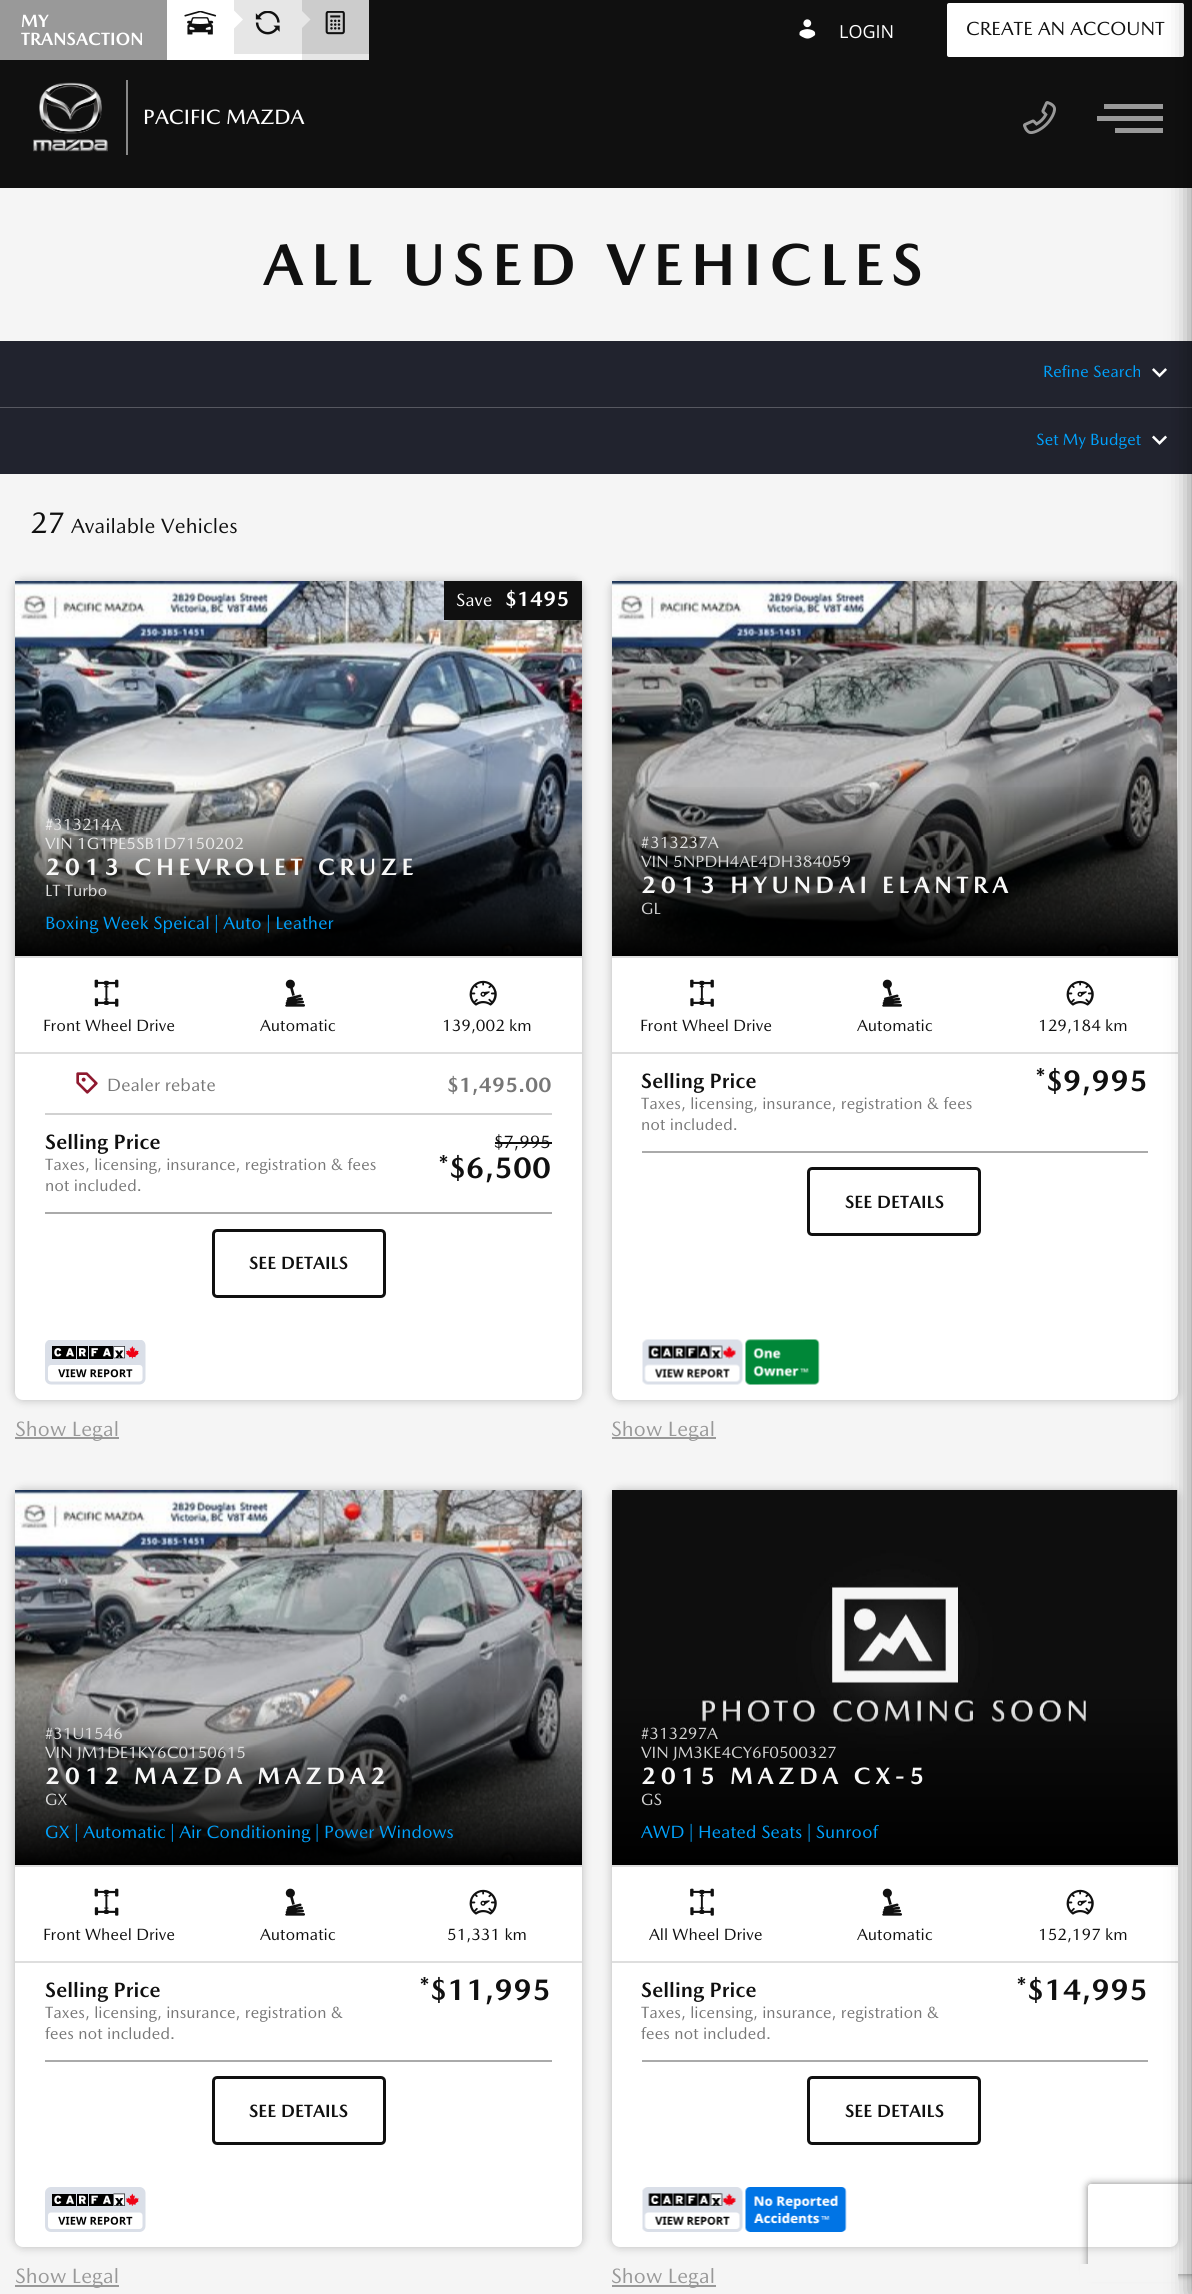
import math
import cairo


def use_color(cr, r, g, b):
  cr.set_source_rgb(r / 255, g / 255, b / 255)

def text(cr, x, y, s, family, size, color, bold=False, italic=False):
  cr.select_font_face(family, cairo.FONT_SLANT_ITALIC if italic else cairo.FONT_SLANT_NORMAL, cairo.FONT_WEIGHT_BOLD if bold else cairo.FONT_WEIGHT_NORMAL)
  cr.set_font_size(size)
  use_color(cr, *color)
  cr.move_to(x, y)
  cr.show_text(s)

def spaced_text(cr, x, y, s, letter, word):
  cr.move_to(x, y)
  for ch in s:
    cr.show_text(ch)
    cr.rel_move_to(letter + word * (ch == ' '), 0)

def box(cr, x, y, w, h, *color):
  use_color(cr, *color)
  cr.rectangle(x, y, w, h)
  cr.fill()

def round_rect(cr, x, y, w, h, r):
  cr.new_sub_path()
  for i, (u, v) in enumerate([(x + w - r, y + h - r), (x + r, y + h - r), (x + r, y + r), (x + w - r, y + r)]):
    cr.arc(u, v, r, i * math.pi / 2, (i + 1) * math.pi / 2)
  cr.close_path()

def shadow(cr, x, y, w, h, r, blur, alpha):
  cr.push_group_with_content(cairo.CONTENT_ALPHA)
  cr.set_operator(cairo.OPERATOR_SOURCE)
  for i in range(15, -16, -2):
    e = blur * i / 6
    if min(w, h) + 2 * e > 0:
      cr.set_source_rgba(0, 0, 0, alpha * math.erfc((i - 1) / 8.5) / 2)
      round_rect(cr, x - e, y - e, w + 2 * e, h + 2 * e, max(0, min(r + e + blur * .6, min(w, h) / 2 + e)))
      cr.fill()
  cr.mask(cr.pop_group())

def picture(cr, path, x, y, w, h):
  cr.save()
  cr.set_source_surface(cairo.ImageSurface.create_from_png(path), x, y)
  cr.rectangle(x, y, w, h)
  cr.fill()
  cr.restore()

def draw(cr):
  use_color(cr, 245, 245, 245)
  cr.paint()
  box(cr, 369, 0, 823, 60, 16, 16, 16)
  box(cr, 0, 0, 167, 60, 153, 153, 153)
  box(cr, 167, 0, 67, 60, 255, 255, 255)
  picture(cr, "img_01.png", 184, 11, 33, 24)
  box(cr, 234, 0, 68, 54, 230, 230, 230)
  use_color(cr, 255, 255, 255)
  cr.new_path()
  cr.move_to(234, 28.5)
  cr.line_to(234, 10.5)
  cr.line_to(243, 19.5)
  cr.close_path()
  cr.fill()
  box(cr, 234, 54, 68, 6, 255, 255, 255)
  picture(cr, "img_02.png", 255, 11, 25, 24)
  box(cr, 302, 0, 67, 54, 204, 204, 204)
  use_color(cr, 230, 230, 230)
  cr.new_path()
  cr.move_to(301.5, 28.5)
  cr.line_to(301.5, 10.5)
  cr.line_to(310.5, 19.5)
  cr.close_path()
  cr.fill()
  box(cr, 302, 54, 67, 6, 230, 230, 230)
  picture(cr, "img_03.png", 325, 11, 20, 24)
  picture(cr, "img_04.png", 799, 19, 17, 20)
  use_color(cr, 255, 255, 255)
  round_rect(cr, 945.5, 1.5, 240, 57, 3.5)
  cr.fill_preserve()
  use_color(cr, 16, 16, 16)
  cr.set_line_width(3)
  cr.stroke()
  box(cr, 0, 60, 1192, 128, 16, 16, 16)
  box(cr, 0, 341, 1192, 66, 33, 35, 46)
  box(cr, 0, 407, 1192, 1, 87, 88, 97)
  picture(cr, "img_05.png", 1152, 368, 15, 10)
  box(cr, 0, 408, 1192, 66, 33, 35, 46)
  picture(cr, "img_06.png", 1152, 435, 15, 10)
  use_color(cr, 0, 0, 0)
  shadow(cr, 612, 581, 566, 819, 8, 4.5, 0.25)
  use_color(cr, 255, 255, 255)
  cr.new_path()
  cr.move_to(612, 581)
  cr.line_to(1178, 581)
  cr.line_to(1178, 1392)
  cr.curve_to(1178, 1396.5, 1174.5, 1400, 1170, 1400)
  cr.line_to(620, 1400)
  cr.curve_to(615.5, 1400, 612, 1396.5, 612, 1392)
  cr.close_path()
  cr.fill()
  picture(cr, "img_13.png", 612, 581, 566, 374)
  gradient = cairo.LinearGradient(895, 581, 895, 956)
  gradient.add_color_stop_rgba(0.53, 1, 1, 1, 0)
  gradient.add_color_stop_rgba(0.54, 0, 0, 0, 0)
  gradient.add_color_stop_rgba(1, 0, 0, 0, 1)
  cr.set_source(gradient)
  cr.rectangle(612, 787, 566, 169)
  cr.fill()
  box(cr, 612, 956, 566, 2, 222, 222, 222)
  box(cr, 612, 1052, 566, 2, 222, 222, 222)
  use_color(cr, 0, 0, 0)
  shadow(cr, 612, 1490, 566, 757, 8, 4.5, 0.25)
  use_color(cr, 255, 255, 255)
  cr.new_path()
  cr.move_to(612, 1490)
  cr.line_to(1178, 1490)
  cr.line_to(1178, 2239)
  cr.curve_to(1178, 2243.5, 1174.5, 2247, 1170, 2247)
  cr.line_to(620, 2247)
  cr.curve_to(615.5, 2247, 612, 2243.5, 612, 2239)
  cr.close_path()
  cr.fill()
  picture(cr, "img_18.png", 612, 1490, 566, 374)
  gradient = cairo.LinearGradient(895, 1490, 895, 1865)
  gradient.add_color_stop_rgba(0.53, 1, 1, 1, 0)
  gradient.add_color_stop_rgba(0.54, 0, 0, 0, 0)
  gradient.add_color_stop_rgba(1, 0, 0, 0, 1)
  cr.set_source(gradient)
  cr.rectangle(612, 1696, 566, 169)
  cr.fill()
  box(cr, 612, 1865, 566, 2, 222, 222, 222)
  box(cr, 612, 1961, 566, 2, 222, 222, 222)
  cr.save()
  cr.set_fill_rule(cairo.FILL_RULE_EVEN_ODD)
  cr.new_path()
  cr.move_to(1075, 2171)
  cr.line_to(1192, 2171)
  cr.line_to(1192, 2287)
  cr.line_to(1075, 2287)
  cr.close_path()
  cr.move_to(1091, 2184)
  cr.line_to(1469, 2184)
  cr.curve_to(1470.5, 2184, 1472, 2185.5, 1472, 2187)
  cr.line_to(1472, 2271)
  cr.curve_to(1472, 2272.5, 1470.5, 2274, 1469, 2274)
  cr.line_to(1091, 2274)
  cr.curve_to(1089.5, 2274, 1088, 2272.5, 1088, 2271)
  cr.line_to(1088, 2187)
  cr.curve_to(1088, 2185.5, 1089.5, 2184, 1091, 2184)
  cr.close_path()
  cr.clip()
  use_color(cr, 128, 128, 128)
  shadow(cr, 1088, 2184, 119, 90, 3, 4, 1)
  cr.restore()
  box(cr, 1080, 2264, 98, 18, 245, 245, 245)
  box(cr, 1097, 116, 66, 5, 153, 153, 153)
  box(cr, 1104, 104, 59, 5, 153, 153, 153)
  box(cr, 1115, 128, 48, 5, 153, 153, 153)
  use_color(cr, 0, 0, 0)
  shadow(cr, 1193, 0, 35, 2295, 0, 12, 0.5)
  shadow(cr, 15, 581, 567, 819, 8, 4.5, 0.25)
  use_color(cr, 255, 255, 255)
  cr.new_path()
  cr.move_to(15, 581)
  cr.line_to(582, 581)
  cr.line_to(582, 1392)
  cr.curve_to(582, 1396.5, 578.5, 1400, 574, 1400)
  cr.line_to(23, 1400)
  cr.curve_to(18.5, 1400, 15, 1396.5, 15, 1392)
  cr.close_path()
  cr.fill()
  picture(cr, "img_07.png", 15, 581, 567, 375)
  box(cr, 444, 581, 138, 39, 16, 16, 16)
  box(cr, 15, 956, 567, 2, 222, 222, 222)
  box(cr, 15, 1052, 567, 2, 222, 222, 222)
  picture(cr, "img_08.png", 94, 979, 25, 28)
  picture(cr, "img_09.png", 285, 979, 20, 28)
  picture(cr, "img_10.png", 469, 980, 28, 26)
  box(cr, 45, 1113, 507, 2, 209, 209, 209)
  picture(cr, "img_11.png", 76, 1072, 22, 22)
  box(cr, 45, 1212, 507, 2, 170, 170, 170)
  box(cr, 495, 1142, 57, 2, 16, 16, 16)
  round_rect(cr, 213.5, 1230.5, 171, 66, 3.5)
  cr.stroke()
  picture(cr, "img_12.png", 45, 1340, 101, 45)
  box(cr, 15, 1437, 104, 2, 153, 153, 153)
  picture(cr, "img_14.png", 690, 979, 24, 28)
  picture(cr, "img_09.png", 882, 979, 20, 28)
  picture(cr, "img_10.png", 1066, 980, 28, 26)
  box(cr, 642, 1151, 506, 2, 170, 170, 170)
  round_rect(cr, 808.5, 1168.5, 171, 66, 3.5)
  use_color(cr, 16, 16, 16)
  cr.stroke()
  picture(cr, "img_15.png", 642, 1339, 178, 46)
  box(cr, 612, 1437, 104, 2, 153, 153, 153)
  use_color(cr, 0, 0, 0)
  shadow(cr, 15, 1490, 567, 757, 8, 4.5, 0.25)
  use_color(cr, 255, 255, 255)
  cr.new_path()
  cr.move_to(15, 1490)
  cr.line_to(582, 1490)
  cr.line_to(582, 2239)
  cr.curve_to(582, 2243.5, 578.5, 2247, 574, 2247)
  cr.line_to(23, 2247)
  cr.curve_to(18.5, 2247, 15, 2243.5, 15, 2239)
  cr.close_path()
  cr.fill()
  picture(cr, "img_16.png", 15, 1490, 567, 375)
  box(cr, 15, 1865, 567, 2, 222, 222, 222)
  box(cr, 15, 1961, 567, 2, 222, 222, 222)
  picture(cr, "img_08.png", 94, 1888, 25, 28)
  picture(cr, "img_09.png", 285, 1888, 20, 28)
  picture(cr, "img_10.png", 469, 1889, 28, 26)
  box(cr, 45, 2060, 507, 2, 170, 170, 170)
  round_rect(cr, 213.5, 2077.5, 171, 66, 3.5)
  use_color(cr, 16, 16, 16)
  cr.stroke()
  picture(cr, "img_17.png", 45, 2187, 101, 45)
  box(cr, 15, 2285, 104, 2, 153, 153, 153)
  picture(cr, "img_14.png", 690, 1888, 24, 28)
  picture(cr, "img_09.png", 882, 1888, 20, 28)
  picture(cr, "img_10.png", 1066, 1889, 28, 26)
  box(cr, 642, 2060, 506, 2, 170, 170, 170)
  round_rect(cr, 808.5, 2077.5, 171, 66, 3.5)
  use_color(cr, 16, 16, 16)
  cr.stroke()
  picture(cr, "img_19.png", 642, 2187, 205, 45)
  box(cr, 612, 2285, 104, 2, 153, 153, 153)
  box(cr, 126, 80, 2, 75, 136, 136, 136)
  picture(cr, "img_20.png", 33, 82, 75, 70)
  picture(cr, "img_21.png", 1023, 101, 33, 33)
  text(cr, 21, 27, "MY", "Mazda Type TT", 18, (255, 255, 255), bold=True)
  text(cr, 21, 45, "TRANSACTION", "Mazda Type TT", 18, (255, 255, 255), bold=True)
  text(cr, 839, 38, "LOGIN", "Open Sans", 18, (255, 255, 255))
  text(cr, 966, 35, "CREATE AN ACCOUNT", "Mazda Type TT", 19.25, (16, 16, 16))
  cr.select_font_face("Mazda Type TT", cairo.FONT_SLANT_NORMAL, cairo.FONT_WEIGHT_BOLD)
  cr.set_font_size(60)
  spaced_text(cr, 263, 285, "ALL USED VEHICLES", 7.5, 0)
  text(cr, 1043, 377, "Refine Search", "Mazda Type TT", 16.5, (0, 162, 253))
  text(cr, 1036, 445, "Set My Budget", "Mazda Type TT", 16.5, (0, 162, 253))
  text(cr, 30, 533, "27", "Mazda Type TT", 30, (16, 16, 16))
  text(cr, 71, 533, "Available Vehicles", "Mazda Type TT", 21, (16, 16, 16))
  text(cr, 456, 606, "Save", "Mazda Type TT", 18, (255, 255, 255))
  text(cr, 505, 606, "$1495", "Mazda Type TT", 21, (255, 255, 255), bold=True)
  text(cr, 45, 830, "#", "Mazda Type TT", 16.5, (237, 237, 237))
  text(cr, 53, 830, "313214A", "Mazda Type TT", 16.5, (223, 223, 223))
  text(cr, 45, 849, "VIN 1G1PE5SB1D7150202", "Mazda Type TT", 16.5, (232, 232, 231))
  cr.select_font_face("Mazda Type TT", cairo.FONT_SLANT_NORMAL, cairo.FONT_WEIGHT_BOLD)
  cr.set_font_size(24)
  use_color(cr, 248, 248, 248)
  spaced_text(cr, 45, 875, "2013 CHEVROLET CRUZE", 4.5, 0)
  text(cr, 45, 896, "LT Turbo", "Mazda Type TT", 16.5, (223, 223, 223))
  text(cr, 45, 929, "Boxing Week Speical | Auto | Leather", "Mazda Type TT", 18, (0, 162, 253))
  text(cr, 43, 1031, "Front Wheel Drive", "Mazda Type TT", 16.5, (16, 16, 16))
  text(cr, 260, 1031, "Automatic", "Mazda Type TT", 16.5, (16, 16, 16))
  text(cr, 442, 1031, "139,002 km", "Mazda Type TT", 16.5, (16, 16, 16))
  text(cr, 107, 1091, "Dealer rebate", "Mazda Type TT", 18, (119, 119, 119))
  text(cr, 447, 1092, "$1,495.00", "Mazda Type TT", 21, (119, 119, 119), bold=True)
  text(cr, 45, 1149, "Selling Price", "Mazda Type TT", 21, (16, 16, 16), bold=True)
  text(cr, 45, 1170, "Taxes, licensing, insurance, registration & fees", "Mazda Type TT", 16.5, (119, 119, 119))
  text(cr, 45, 1191, "not included.", "Mazda Type TT", 16.5, (119, 119, 119))
  text(cr, 494, 1148, "$7,995", "Mazda Type TT", 18, (16, 16, 16))
  text(cr, 438, 1178, "*$6,500", "Mazda Type TT", 30, (16, 16, 16), bold=True)
  text(cr, 249, 1269, "SEE DETAILS", "Mazda Type TT", 18, (16, 16, 16), bold=True)
  text(cr, 15, 1436, "Show Legal", "Mazda Type TT", 21, (153, 153, 153))
  text(cr, 641, 848, "#", "Mazda Type TT", 16.5, (223, 223, 223))
  text(cr, 650, 848, "313237A", "Mazda Type TT", 16.5, (223, 223, 223))
  text(cr, 641, 867, "VIN 5NPDH4AE4DH384059", "Mazda Type TT", 16.5, (217, 218, 218))
  cr.select_font_face("Mazda Type TT", cairo.FONT_SLANT_NORMAL, cairo.FONT_WEIGHT_BOLD)
  cr.set_font_size(24)
  use_color(cr, 248, 248, 248)
  spaced_text(cr, 641, 893, "2013 HYUNDAI ELANTRA", 4.5, 0)
  text(cr, 641, 914, "GL", "Mazda Type TT", 16.5, (212, 212, 212))
  text(cr, 640, 1031, "Front Wheel Drive", "Mazda Type TT", 16.5, (16, 16, 16))
  text(cr, 857, 1031, "Automatic", "Mazda Type TT", 16.5, (16, 16, 16))
  text(cr, 1038, 1031, "129,184 km", "Mazda Type TT", 16.5, (16, 16, 16))
  text(cr, 641, 1088, "Selling Price", "Mazda Type TT", 21, (16, 16, 16), bold=True)
  text(cr, 641, 1109, "Taxes, licensing, insurance, registration & fees", "Mazda Type TT", 16.5, (119, 119, 119))
  text(cr, 641, 1130, "not included.", "Mazda Type TT", 16.5, (119, 119, 119))
  text(cr, 1035, 1091, "*$9,995", "Mazda Type TT", 30, (16, 16, 16), bold=True)
  text(cr, 845, 1208, "SEE DETAILS", "Mazda Type TT", 18, (16, 16, 16), bold=True)
  text(cr, 611, 1436, "Show Legal", "Mazda Type TT", 21, (153, 153, 153))
  text(cr, 45, 1739, "#", "Mazda Type TT", 16.5, (223, 223, 223))
  text(cr, 53, 1739, "31U1546", "Mazda Type TT", 16.5, (223, 223, 223))
  text(cr, 45, 1758, "VIN JM1DE1KY6C0150615", "Mazda Type TT", 16.5, (223, 223, 223))
  cr.select_font_face("Mazda Type TT", cairo.FONT_SLANT_NORMAL, cairo.FONT_WEIGHT_BOLD)
  cr.set_font_size(24)
  use_color(cr, 248, 248, 248)
  spaced_text(cr, 45, 1784, "2012 MAZDA MAZDA2", 4.5, 0)
  text(cr, 45, 1805, "GX", "Mazda Type TT", 16.5, (217, 218, 218))
  text(cr, 45, 1838, "GX | Automatic | Air Conditioning | Power Windows", "Mazda Type TT", 18, (0, 162, 253))
  text(cr, 43, 1940, "Front Wheel Drive", "Mazda Type TT", 16.5, (16, 16, 16))
  text(cr, 260, 1940, "Automatic", "Mazda Type TT", 16.5, (16, 16, 16))
  text(cr, 447, 1940, "51,331 km", "Mazda Type TT", 16.5, (16, 16, 16))
  text(cr, 45, 1997, "Selling Price", "Mazda Type TT", 21, (16, 16, 16), bold=True)
  text(cr, 45, 2018, "Taxes, licensing, insurance, registration &", "Mazda Type TT", 16.5, (119, 119, 119))
  text(cr, 45, 2039, "fees not included.", "Mazda Type TT", 16.5, (119, 119, 119))
  text(cr, 419, 2000, "*$11,995", "Mazda Type TT", 30, (16, 16, 16), bold=True)
  text(cr, 249, 2117, "SEE DETAILS", "Mazda Type TT", 18, (16, 16, 16), bold=True)
  text(cr, 15, 2283, "Show Legal", "Mazda Type TT", 21, (153, 153, 153))
  text(cr, 641, 1739, "#313297A", "Mazda Type TT", 16.5, (212, 212, 212))
  text(cr, 641, 1758, "VIN JM3KE4CY6F0500327", "Mazda Type TT", 16.5, (212, 212, 212))
  cr.select_font_face("Mazda Type TT", cairo.FONT_SLANT_NORMAL, cairo.FONT_WEIGHT_BOLD)
  cr.set_font_size(24)
  use_color(cr, 248, 248, 248)
  spaced_text(cr, 641, 1784, "2015 MAZDA CX-5", 4.5, 0)
  text(cr, 641, 1805, "GS", "Mazda Type TT", 16.5, (212, 212, 212))
  text(cr, 641, 1838, "AWD | Heated Seats | Sunroof", "Mazda Type TT", 18, (0, 162, 253))
  text(cr, 649, 1940, "All Wheel Drive", "Mazda Type TT", 16.5, (16, 16, 16))
  text(cr, 857, 1940, "Automatic", "Mazda Type TT", 16.5, (16, 16, 16))
  text(cr, 1038, 1940, "152,197 km", "Mazda Type TT", 16.5, (16, 16, 16))
  text(cr, 641, 1997, "Selling Price", "Mazda Type TT", 21, (16, 16, 16), bold=True)
  text(cr, 641, 2018, "Taxes, licensing, insurance, registration &", "Mazda Type TT", 16.5, (119, 119, 119))
  text(cr, 641, 2039, "fees not included.", "Mazda Type TT", 16.5, (119, 119, 119))
  text(cr, 1016, 2000, "*$14,995", "Mazda Type TT", 30, (16, 16, 16), bold=True)
  text(cr, 845, 2117, "SEE DETAILS", "Mazda Type TT", 18, (16, 16, 16), bold=True)
  text(cr, 611, 2283, "Show Legal", "Mazda Type TT", 21, (153, 153, 153))
  text(cr, 143, 124, "PACIFIC MAZDA", "Mazda Type TT Medium", 21, (255, 255, 255))


surface = cairo.ImageSurface(cairo.FORMAT_RGB24, 1192, 2294)
cr = cairo.Context(surface)
options = cairo.FontOptions()
options.set_hint_metrics(cairo.HINT_METRICS_OFF)
options.set_hint_style(cairo.HINT_STYLE_NONE)
cr.set_font_options(options)
cr.set_miter_limit(4)
draw(cr)
surface.write_to_png("out.png")
